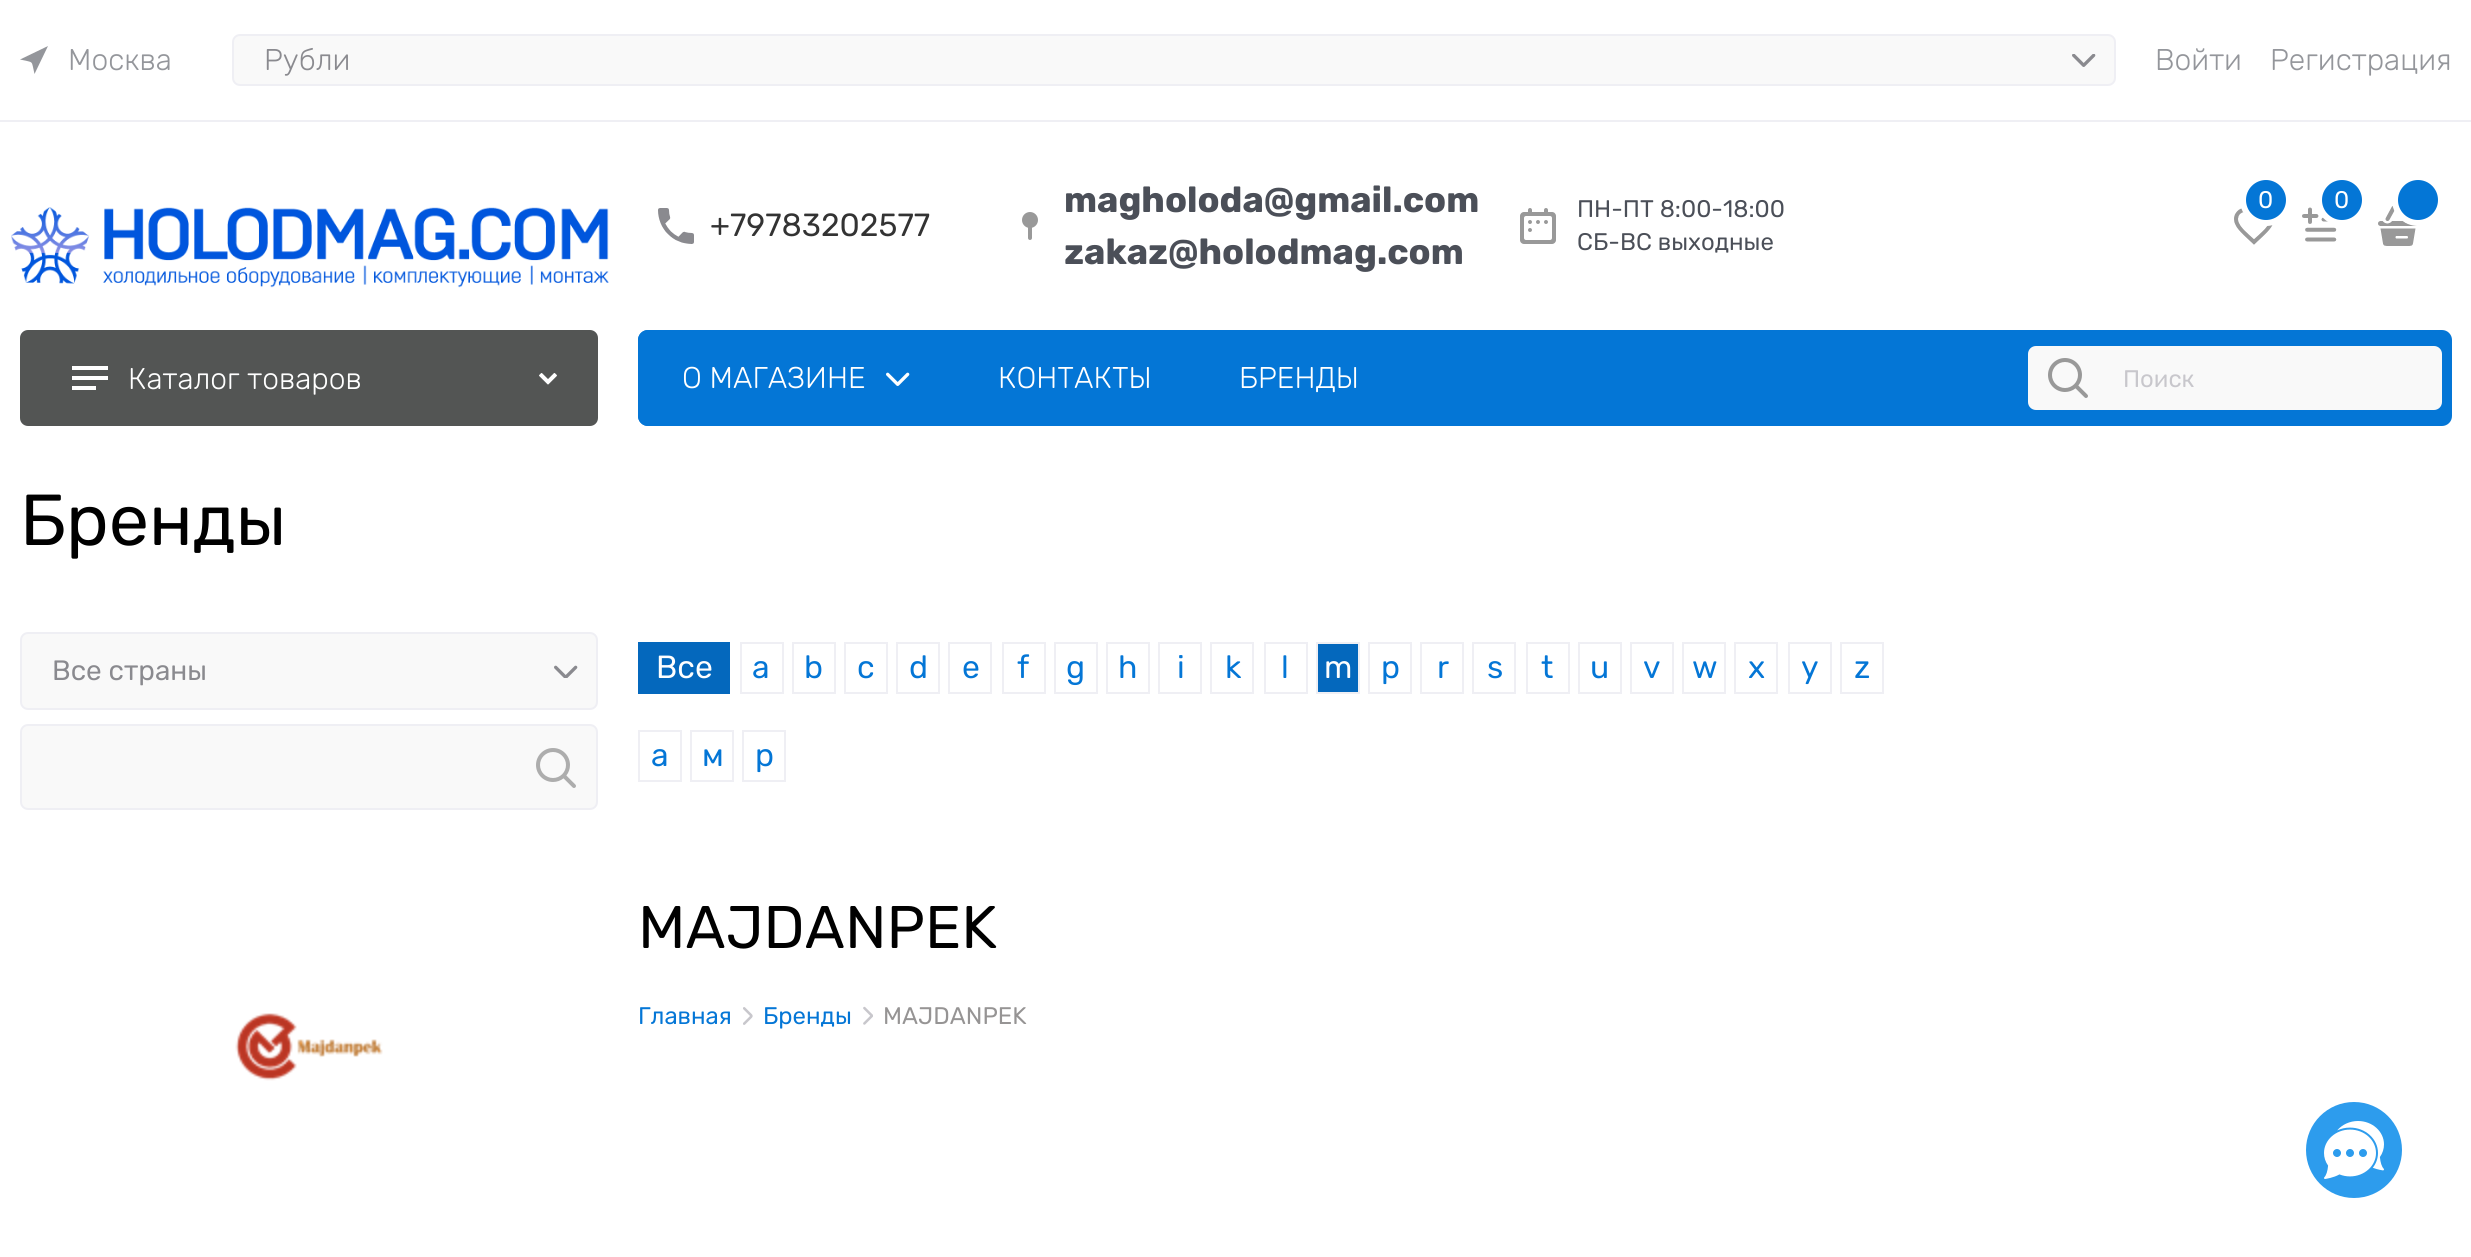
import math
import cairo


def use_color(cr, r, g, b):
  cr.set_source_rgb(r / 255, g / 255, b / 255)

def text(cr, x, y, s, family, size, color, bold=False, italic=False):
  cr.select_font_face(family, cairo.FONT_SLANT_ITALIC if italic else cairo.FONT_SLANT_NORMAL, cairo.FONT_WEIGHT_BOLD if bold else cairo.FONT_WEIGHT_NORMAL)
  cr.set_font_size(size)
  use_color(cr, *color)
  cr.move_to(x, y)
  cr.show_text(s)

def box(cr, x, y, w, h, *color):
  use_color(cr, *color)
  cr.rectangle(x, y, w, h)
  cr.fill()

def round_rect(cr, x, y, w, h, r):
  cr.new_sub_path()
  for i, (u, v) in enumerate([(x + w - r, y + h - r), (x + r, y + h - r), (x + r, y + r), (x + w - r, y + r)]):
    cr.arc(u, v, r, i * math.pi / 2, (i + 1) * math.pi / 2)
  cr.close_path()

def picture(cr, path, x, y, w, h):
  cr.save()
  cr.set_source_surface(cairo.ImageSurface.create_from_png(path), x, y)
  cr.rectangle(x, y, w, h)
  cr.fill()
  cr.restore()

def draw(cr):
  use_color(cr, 255, 255, 255)
  cr.paint()
  box(cr, 0, 120, 2471, 2, 239, 239, 244)
  use_color(cr, 148, 150, 155)
  cr.new_path()
  cr.move_to(20, 59.5)
  cr.curve_to(34.5, 63, 31, 59.5, 34.5, 74)
  cr.line_to(48, 46)
  cr.close_path()
  cr.fill()
  use_color(cr, 249, 249, 249)
  round_rect(cr, 233, 35, 1882, 50, 7)
  cr.fill_preserve()
  use_color(cr, 239, 239, 244)
  cr.stroke()
  picture(cr, "img_01.png", 2072, 54, 24, 13)
  picture(cr, "img_02.png", 658, 208, 36, 36)
  picture(cr, "img_03.png", 1022, 212, 16, 28)
  picture(cr, "img_04.png", 1520, 208, 36, 36)
  picture(cr, "img_05.png", 2234, 208, 39, 37)
  use_color(cr, 4, 118, 214)
  cr.arc(2266, 200, 23, 0, 2 * math.pi)
  cr.fill_preserve()
  use_color(cr, 255, 255, 255)
  cr.set_line_width(6)
  cr.stroke()
  picture(cr, "img_06.png", 2302, 207, 35, 35)
  use_color(cr, 4, 118, 214)
  cr.arc(2342, 200, 23, 0, 2 * math.pi)
  cr.fill_preserve()
  use_color(cr, 255, 255, 255)
  cr.stroke()
  picture(cr, "img_07.png", 2378, 206, 40, 40)
  use_color(cr, 4, 118, 214)
  cr.arc(2418, 200, 23, 0, 2 * math.pi)
  cr.fill_preserve()
  use_color(cr, 255, 255, 255)
  cr.stroke()
  picture(cr, "img_08.png", 11, 207, 598, 81)
  use_color(cr, 83, 85, 84)
  round_rect(cr, 20, 330, 578, 96, 8)
  cr.fill()
  use_color(cr, 255, 255, 255)
  cr.new_path()
  cr.move_to(72, 390)
  cr.line_to(96, 390)
  cr.line_to(96, 386)
  cr.line_to(72, 386)
  cr.close_path()
  cr.move_to(72, 366)
  cr.line_to(72, 370)
  cr.line_to(108, 370)
  cr.line_to(108, 366)
  cr.close_path()
  cr.move_to(72, 380)
  cr.line_to(108, 380)
  cr.line_to(108, 376)
  cr.line_to(72, 376)
  cr.close_path()
  cr.fill()
  picture(cr, "img_09.png", 539, 373, 18, 12)
  use_color(cr, 4, 118, 214)
  round_rect(cr, 638, 330, 1814, 96, 10)
  cr.fill()
  round_rect(cr, 638, 330, 1350, 96, 10)
  cr.fill()
  picture(cr, "img_10.png", 886, 372, 24, 14)
  use_color(cr, 249, 249, 249)
  round_rect(cr, 2028, 346, 414, 64, 8)
  cr.fill()
  picture(cr, "img_11.png", 2048, 358, 40, 40)
  round_rect(cr, 21, 633, 576, 76, 7)
  cr.fill_preserve()
  use_color(cr, 239, 239, 244)
  cr.set_line_width(2)
  cr.stroke()
  picture(cr, "img_12.png", 554, 665, 24, 13)
  use_color(cr, 249, 249, 249)
  round_rect(cr, 21, 725, 576, 84, 7)
  cr.fill_preserve()
  use_color(cr, 239, 239, 244)
  cr.stroke()
  picture(cr, "img_13.png", 536, 748, 40, 40)
  box(cr, 638, 642, 92, 52, 4, 104, 189)
  cr.rectangle(741, 643, 42, 50)
  use_color(cr, 239, 239, 244)
  cr.stroke()
  cr.rectangle(793, 643, 42, 50)
  cr.stroke()
  cr.rectangle(845, 643, 42, 50)
  cr.stroke()
  cr.rectangle(897, 643, 42, 50)
  cr.stroke()
  cr.rectangle(949, 643, 42, 50)
  cr.stroke()
  cr.rectangle(1003, 643, 42, 50)
  cr.stroke()
  cr.rectangle(1055, 643, 42, 50)
  cr.stroke()
  cr.rectangle(1107, 643, 42, 50)
  cr.stroke()
  cr.rectangle(1159, 643, 42, 50)
  cr.stroke()
  cr.rectangle(1211, 643, 42, 50)
  cr.stroke()
  cr.rectangle(1265, 643, 42, 50)
  cr.stroke()
  use_color(cr, 4, 104, 189)
  cr.rectangle(1317, 643, 42, 50)
  cr.fill_preserve()
  use_color(cr, 239, 239, 244)
  cr.stroke()
  cr.rectangle(1369, 643, 42, 50)
  cr.stroke()
  cr.rectangle(1421, 643, 42, 50)
  cr.stroke()
  cr.rectangle(1473, 643, 42, 50)
  cr.stroke()
  cr.rectangle(1527, 643, 42, 50)
  cr.stroke()
  cr.rectangle(1579, 643, 42, 50)
  cr.stroke()
  cr.rectangle(1631, 643, 42, 50)
  cr.stroke()
  cr.rectangle(1683, 643, 42, 50)
  cr.stroke()
  cr.rectangle(1735, 643, 42, 50)
  cr.stroke()
  cr.rectangle(1789, 643, 42, 50)
  cr.stroke()
  cr.rectangle(1841, 643, 42, 50)
  cr.stroke()
  cr.rectangle(639, 731, 42, 50)
  cr.stroke()
  cr.rectangle(691, 731, 42, 50)
  cr.stroke()
  cr.rectangle(743, 731, 42, 50)
  cr.stroke()
  picture(cr, "img_14.png", 743, 1007, 10, 18)
  picture(cr, "img_15.png", 863, 1006, 10, 19)
  picture(cr, "img_16.png", 235, 1013, 148, 68)
  use_color(cr, 45, 156, 237)
  cr.arc(2354, 1150, 48, 0, 2 * math.pi)
  cr.fill()
  picture(cr, "img_17.png", 2324, 1121, 60, 58)
  text(cr, 68, 70, "Москва", "Rubik Light", 30, (148, 150, 155))
  text(cr, 264, 70, "Рубли", "Rubik Light", 30, (138, 138, 143))
  text(cr, 2155, 70, "Войти", "Rubik Light", 30, (148, 150, 155))
  text(cr, 2270, 70, "Регистрация", "Rubik Light", 30, (148, 150, 155))
  text(cr, 710, 236, "+79783202577", "Rubik", 32, (51, 51, 51))
  text(cr, 1064, 212, "magholoda@gmail.com", "Rubik", 36, (75, 79, 88), bold=True)
  text(cr, 1064, 264, "zakaz@holodmag.com", "Rubik", 36, (75, 79, 88), bold=True)
  text(cr, 1577, 217, "ПН-ПТ 8:00-18:00", "Rubik", 24, (75, 79, 88))
  text(cr, 1577, 250, "СБ-ВС выходные", "Rubik", 24, (75, 79, 88))
  text(cr, 2258, 208, "0", "Rubik", 24, (255, 255, 255))
  text(cr, 2334, 208, "0", "Rubik", 24, (255, 255, 255))
  text(cr, 128, 389, "Каталог товаров", "Rubik Light", 30, (255, 255, 255))
  text(cr, 682, 388, "О МАГАЗИНЕ", "Rubik Light", 30, (255, 255, 255))
  text(cr, 998, 388, "КОНТАКТЫ", "Rubik Light", 30, (255, 255, 255))
  text(cr, 1239, 388, "БРЕНДЫ", "Rubik Light", 30, (255, 255, 255))
  text(cr, 2123, 387, "Поиск", "Rubik", 24, (200, 199, 204))
  text(cr, 20, 545, "Бренды", "Rubik", 72, (0, 0, 0))
  text(cr, 52, 680, "Все страны", "Rubik", 28, (138, 138, 143))
  text(cr, 656, 678, "Все", "Rubik", 32, (255, 255, 255))
  text(cr, 752, 678, "a", "Rubik", 32, (4, 118, 214))
  text(cr, 804, 678, "b", "Rubik", 32, (4, 118, 214))
  text(cr, 857, 678, "c", "Rubik", 32, (4, 118, 214))
  text(cr, 909, 678, "d", "Rubik", 32, (4, 118, 214))
  text(cr, 962, 678, "e", "Rubik", 32, (4, 118, 214))
  text(cr, 1017, 678, "f", "Rubik", 32, (4, 118, 214))
  text(cr, 1066, 678, "g", "Rubik", 32, (4, 118, 214))
  text(cr, 1118, 678, "h", "Rubik", 32, (4, 118, 214))
  text(cr, 1177, 678, "i", "Rubik", 32, (4, 118, 214))
  text(cr, 1225, 678, "k", "Rubik", 32, (4, 118, 214))
  text(cr, 1281, 678, "l", "Rubik", 32, (4, 118, 214))
  text(cr, 1324, 678, "m", "Rubik", 32, (255, 255, 255))
  text(cr, 1381, 678, "p", "Rubik", 32, (4, 118, 214))
  text(cr, 1437, 678, "r", "Rubik", 32, (4, 118, 214))
  text(cr, 1487, 678, "s", "Rubik", 32, (4, 118, 214))
  text(cr, 1541, 678, "t", "Rubik", 32, (4, 118, 214))
  text(cr, 1590, 678, "u", "Rubik", 32, (4, 118, 214))
  text(cr, 1643, 678, "v", "Rubik", 32, (4, 118, 214))
  text(cr, 1692, 678, "w", "Rubik", 32, (4, 118, 214))
  text(cr, 1748, 678, "x", "Rubik", 32, (4, 118, 214))
  text(cr, 1801, 678, "y", "Rubik", 32, (4, 118, 214))
  text(cr, 1854, 678, "z", "Rubik", 32, (4, 118, 214))
  text(cr, 651, 766, "а", "Rubik", 32, (4, 118, 214))
  text(cr, 702, 766, "м", "Rubik", 32, (4, 118, 214))
  text(cr, 755, 766, "р", "Rubik", 32, (4, 118, 214))
  text(cr, 638, 948, "MAJDANPEK", "Rubik", 60, (0, 0, 0))
  text(cr, 638, 1024, "Главная", "Rubik", 24, (4, 118, 214))
  text(cr, 763, 1024, "Бренды", "Rubik", 24, (4, 118, 214))
  text(cr, 883, 1024, "MAJDANPEK", "Rubik", 24, (150, 148, 148))


surface = cairo.ImageSurface(cairo.FORMAT_RGB24, 2471, 1257)
cr = cairo.Context(surface)
options = cairo.FontOptions()
options.set_hint_metrics(cairo.HINT_METRICS_OFF)
options.set_hint_style(cairo.HINT_STYLE_NONE)
cr.set_font_options(options)
cr.set_miter_limit(4)
draw(cr)
surface.write_to_png("out.png")
